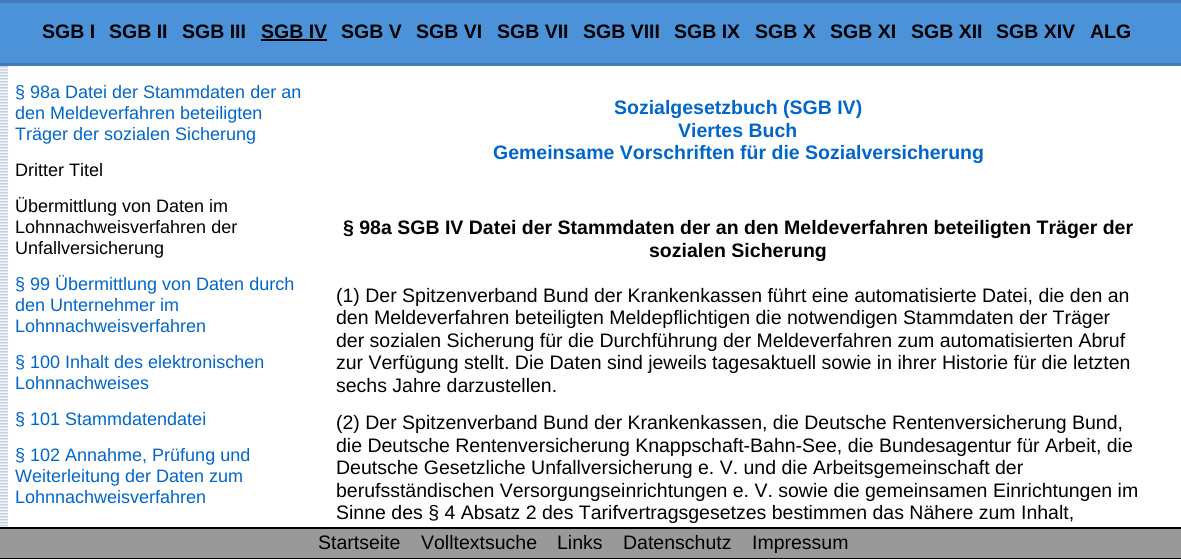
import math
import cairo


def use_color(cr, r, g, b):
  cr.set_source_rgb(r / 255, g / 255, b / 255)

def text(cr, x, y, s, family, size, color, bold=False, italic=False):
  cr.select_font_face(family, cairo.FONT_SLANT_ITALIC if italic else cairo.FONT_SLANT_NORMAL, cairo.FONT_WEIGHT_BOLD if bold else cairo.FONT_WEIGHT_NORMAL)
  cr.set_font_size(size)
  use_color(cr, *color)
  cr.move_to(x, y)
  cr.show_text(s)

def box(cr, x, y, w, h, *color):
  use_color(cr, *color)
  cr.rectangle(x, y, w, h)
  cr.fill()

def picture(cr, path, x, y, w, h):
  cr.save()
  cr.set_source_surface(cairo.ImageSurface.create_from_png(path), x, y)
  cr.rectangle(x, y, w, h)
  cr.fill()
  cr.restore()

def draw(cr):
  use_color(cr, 255, 255, 255)
  cr.paint()
  box(cr, 0, 3, 1181, 60, 75, 146, 217)
  box(cr, 0, 0, 1181, 3, 68, 122, 187)
  box(cr, 0, 63, 1181, 3, 68, 122, 187)
  box(cr, 261, 39, 66, 2, 0, 0, 0)
  picture(cr, "img_01.png", 0, 66, 8, 461)
  box(cr, 0, 529, 1181, 29, 153, 153, 153)
  box(cr, 0, 527, 1181, 2, 0, 0, 0)
  box(cr, 0, 558, 1181, 1, 0, 0, 0)
  text(cr, 42, 38, "SGB I", "Liberation Sans", 19.5, (0, 0, 0), bold=True)
  text(cr, 109, 38, "SGB II", "Liberation Sans", 19.5, (0, 0, 0), bold=True)
  text(cr, 182, 38, "SGB III", "Liberation Sans", 19.5, (0, 0, 0), bold=True)
  text(cr, 261, 38, "SGB IV", "Liberation Sans", 19.5, (0, 0, 0), bold=True)
  text(cr, 341, 38, "SGB V", "Liberation Sans", 19.5, (0, 0, 0), bold=True)
  text(cr, 416, 38, "SGB VI", "Liberation Sans", 19.5, (0, 0, 0), bold=True)
  text(cr, 497, 38, "SGB VII", "Liberation Sans", 19.5, (0, 0, 0), bold=True)
  text(cr, 583, 38, "SGB VIII", "Liberation Sans", 19.5, (0, 0, 0), bold=True)
  text(cr, 674, 38, "SGB IX", "Liberation Sans", 19.5, (0, 0, 0), bold=True)
  text(cr, 755, 38, "SGB X", "Liberation Sans", 19.5, (0, 0, 0), bold=True)
  text(cr, 830, 38, "SGB XI", "Liberation Sans", 19.5, (0, 0, 0), bold=True)
  text(cr, 911, 38, "SGB XII", "Liberation Sans", 19.5, (0, 0, 0), bold=True)
  text(cr, 996, 38, "SGB XIV", "Liberation Sans", 19.5, (0, 0, 0), bold=True)
  text(cr, 1090, 38, "ALG", "Liberation Sans", 19.5, (0, 0, 0), bold=True)
  text(cr, 15, 98, "§ 98a Datei der Stammdaten der an", "Liberation Sans", 18, (0, 102, 204))
  text(cr, 15, 119, "den Meldeverfahren beteiligten", "Liberation Sans", 18, (0, 102, 204))
  text(cr, 15, 140, "Träger der sozialen Sicherung", "Liberation Sans", 18, (0, 102, 204))
  text(cr, 15, 176, "Dritter Titel", "Liberation Sans", 18, (0, 0, 0))
  text(cr, 15, 212, "Übermittlung von Daten im", "Liberation Sans", 18, (0, 0, 0))
  text(cr, 15, 233, "Lohnnachweisverfahren der", "Liberation Sans", 18, (0, 0, 0))
  text(cr, 15, 254, "Unfallversicherung", "Liberation Sans", 18, (0, 0, 0))
  text(cr, 15, 290, "§ 99 Übermittlung von Daten durch", "Liberation Sans", 18, (0, 102, 204))
  text(cr, 15, 311, "den Unternehmer im", "Liberation Sans", 18, (0, 102, 204))
  text(cr, 15, 332, "Lohnnachweisverfahren", "Liberation Sans", 18, (0, 102, 204))
  text(cr, 15, 368, "§ 100 Inhalt des elektronischen", "Liberation Sans", 18, (0, 102, 204))
  text(cr, 15, 389, "Lohnnachweises", "Liberation Sans", 18, (0, 102, 204))
  text(cr, 15, 425, "§ 101 Stammdatendatei", "Liberation Sans", 18, (0, 102, 204))
  text(cr, 15, 461, "§ 102 Annahme, Prüfung und", "Liberation Sans", 18, (0, 102, 204))
  text(cr, 15, 482, "Weiterleitung der Daten zum", "Liberation Sans", 18, (0, 102, 204))
  text(cr, 15, 503, "Lohnnachweisverfahren", "Liberation Sans", 18, (0, 102, 204))
  text(cr, 614, 114, "Sozialgesetzbuch (SGB IV)", "Liberation Sans", 19.5, (0, 102, 204), bold=True)
  text(cr, 678, 137, "Viertes Buch", "Liberation Sans", 19.5, (0, 102, 204), bold=True)
  text(cr, 493, 159, "Gemeinsame Vorschriften für die Sozialversicherung", "Liberation Sans", 19.5, (0, 102, 204), bold=True)
  text(cr, 343, 234, "§ 98a SGB IV Datei der Stammdaten der an den Meldeverfahren beteiligten Träger der", "Liberation Sans", 19.5, (0, 0, 0), bold=True)
  text(cr, 649, 257, "sozialen Sicherung", "Liberation Sans", 19.5, (0, 0, 0), bold=True)
  text(cr, 336, 302, "(1) Der Spitzenverband Bund der Krankenkassen führt eine automatisierte Datei, die den an", "Liberation Sans", 19.5, (0, 0, 0))
  text(cr, 336, 324, "den Meldeverfahren beteiligten Meldepflichtigen die notwendigen Stammdaten der Träger", "Liberation Sans", 19.5, (0, 0, 0))
  text(cr, 336, 347, "der sozialen Sicherung für die Durchführung der Meldeverfahren zum automatisierten Abruf", "Liberation Sans", 19.5, (0, 0, 0))
  text(cr, 336, 369, "zur Verfügung stellt. Die Daten sind jeweils tagesaktuell sowie in ihrer Historie für die letzten", "Liberation Sans", 19.5, (0, 0, 0))
  text(cr, 336, 392, "sechs Jahre darzustellen.", "Liberation Sans", 19.5, (0, 0, 0))
  text(cr, 336, 429, "(2) Der Spitzenverband Bund der Krankenkassen, die Deutsche Rentenversicherung Bund,", "Liberation Sans", 19.5, (0, 0, 0))
  text(cr, 336, 452, "die Deutsche Rentenversicherung Knappschaft-Bahn-See, die Bundesagentur für Arbeit, die", "Liberation Sans", 19.5, (0, 0, 0))
  text(cr, 336, 474, "Deutsche Gesetzliche Unfallversicherung e. V. und die Arbeitsgemeinschaft der", "Liberation Sans", 19.5, (0, 0, 0))
  text(cr, 336, 497, "berufsständischen Versorgungseinrichtungen e. V. sowie die gemeinsamen Einrichtungen im", "Liberation Sans", 19.5, (0, 0, 0))
  text(cr, 336, 519, "Sinne des § 4 Absatz 2 des Tarifvertragsgesetzes bestimmen das Nähere zum Inhalt,", "Liberation Sans", 19.5, (0, 0, 0))
  text(cr, 318, 549, "Startseite", "Liberation Sans", 19.5, (0, 0, 0))
  text(cr, 421, 549, "Volltextsuche", "Liberation Sans", 19.5, (0, 0, 0))
  text(cr, 557, 549, "Links", "Liberation Sans", 19.5, (0, 0, 0))
  text(cr, 623, 549, "Datenschutz", "Liberation Sans", 19.5, (0, 0, 0))
  text(cr, 752, 549, "Impressum", "Liberation Sans", 19.5, (0, 0, 0))


surface = cairo.ImageSurface(cairo.FORMAT_RGB24, 1181, 559)
cr = cairo.Context(surface)
options = cairo.FontOptions()
options.set_hint_metrics(cairo.HINT_METRICS_OFF)
options.set_hint_style(cairo.HINT_STYLE_NONE)
cr.set_font_options(options)
cr.set_miter_limit(4)
draw(cr)
surface.write_to_png("out.png")
